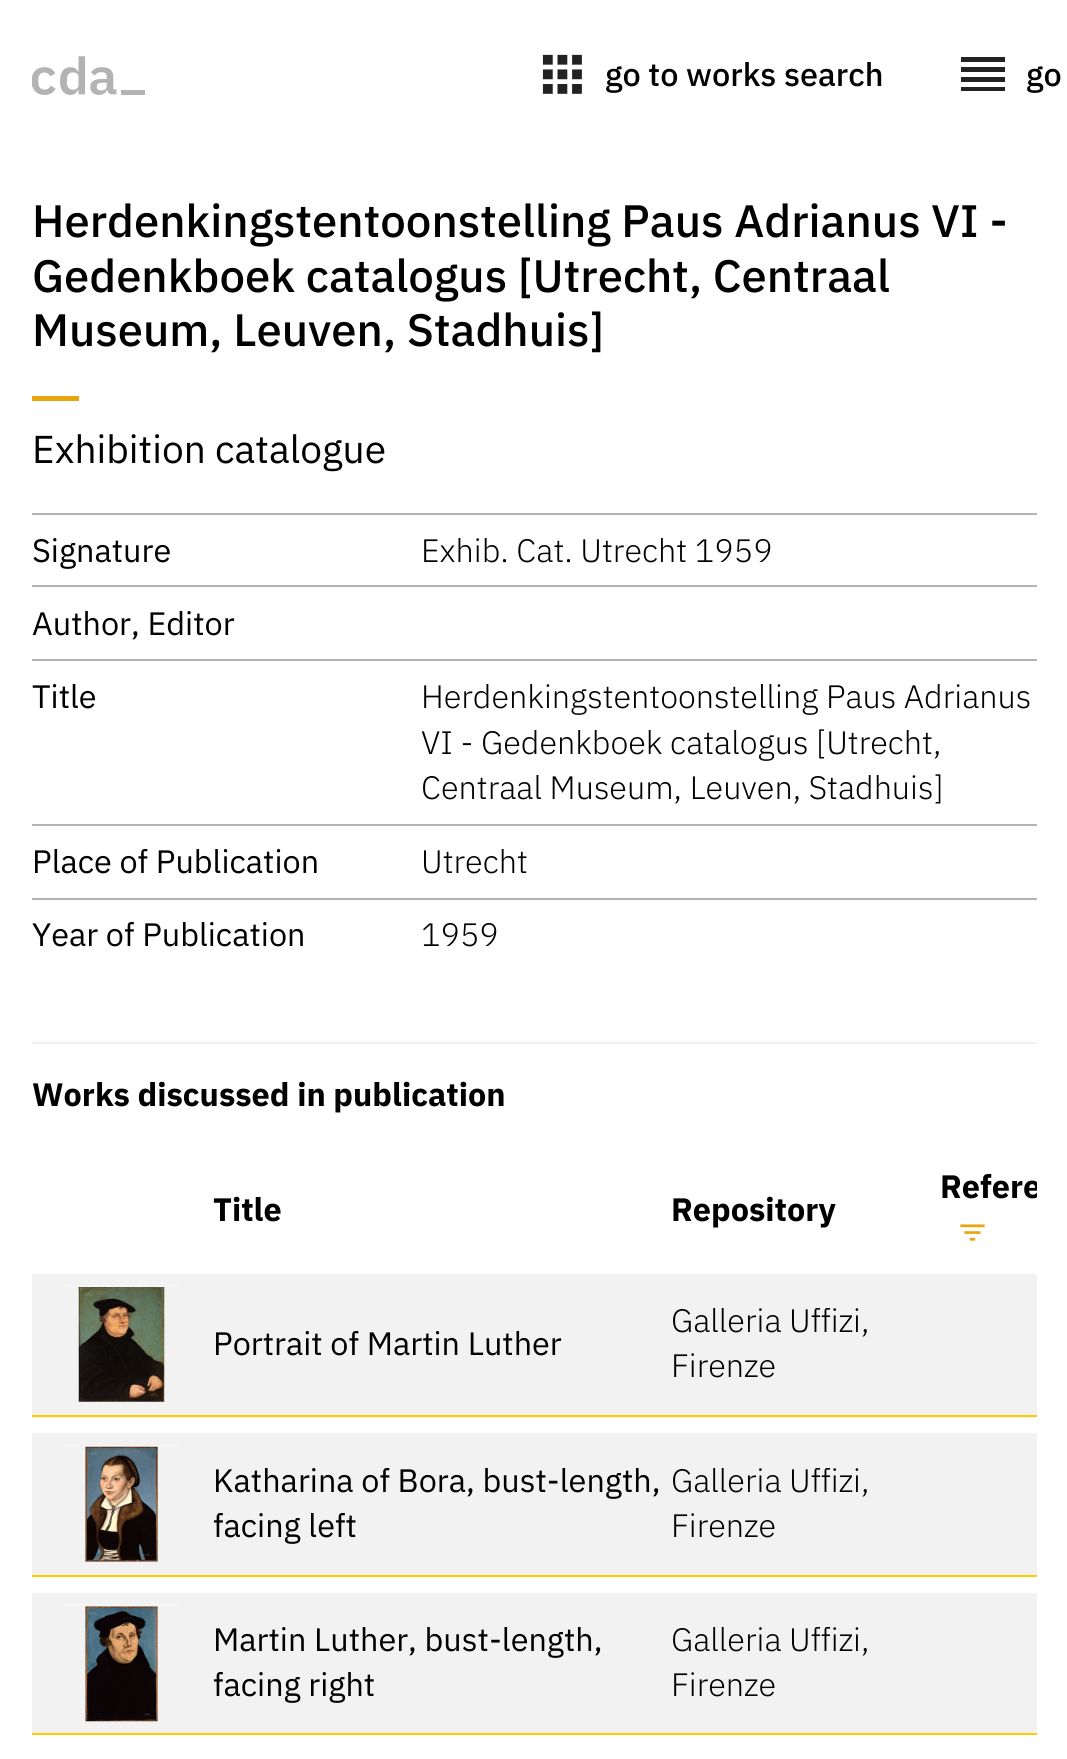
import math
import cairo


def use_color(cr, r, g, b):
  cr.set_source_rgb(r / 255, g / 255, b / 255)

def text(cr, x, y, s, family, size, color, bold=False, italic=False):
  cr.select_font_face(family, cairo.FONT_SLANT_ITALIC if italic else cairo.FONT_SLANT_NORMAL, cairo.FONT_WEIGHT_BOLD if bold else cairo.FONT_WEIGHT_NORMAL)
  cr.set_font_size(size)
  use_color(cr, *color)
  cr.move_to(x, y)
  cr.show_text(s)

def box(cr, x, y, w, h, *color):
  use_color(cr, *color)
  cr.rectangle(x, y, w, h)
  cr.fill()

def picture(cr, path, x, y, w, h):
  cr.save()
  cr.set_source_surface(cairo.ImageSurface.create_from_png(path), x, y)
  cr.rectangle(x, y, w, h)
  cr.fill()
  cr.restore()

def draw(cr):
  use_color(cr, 255, 255, 255)
  cr.paint()
  picture(cr, "img_01.png", 32, 56, 113, 39)
  picture(cr, "img_02.png", 542, 54, 40, 40)
  use_color(cr, 34, 34, 34)
  cr.new_path()
  cr.move_to(961, 82)
  cr.line_to(1005, 82)
  cr.line_to(1005, 77)
  cr.line_to(961, 77)
  cr.close_path()
  cr.move_to(961, 91)
  cr.line_to(1005, 91)
  cr.line_to(1005, 87)
  cr.line_to(961, 87)
  cr.close_path()
  cr.move_to(961, 72)
  cr.line_to(1005, 72)
  cr.line_to(1005, 67)
  cr.line_to(961, 67)
  cr.close_path()
  cr.move_to(961, 57)
  cr.line_to(961, 62)
  cr.line_to(1005, 62)
  cr.line_to(1005, 57)
  cr.close_path()
  cr.fill()
  box(cr, 32, 396, 47, 5, 232, 166, 12)
  box(cr, 32, 513, 1005, 2, 179, 179, 179)
  box(cr, 32, 585, 1005, 2, 179, 179, 179)
  box(cr, 32, 659, 1005, 2, 179, 179, 179)
  box(cr, 32, 824, 1005, 2, 179, 179, 179)
  box(cr, 32, 898, 1005, 2, 179, 179, 179)
  box(cr, 32, 1042, 1005, 2, 240, 240, 240)
  picture(cr, "img_03.png", 960, 1224, 25, 17)
  box(cr, 32, 1274, 1005, 144, 242, 242, 242)
  box(cr, 32, 1415, 1005, 2, 255, 204, 0)
  box(cr, 65, 1285, 113, 2, 245, 245, 245)
  picture(cr, "img_04.png", 78, 1287, 87, 115)
  box(cr, 32, 1433, 1005, 142, 242, 242, 242)
  box(cr, 32, 1575, 1005, 2, 255, 204, 0)
  box(cr, 65, 1445, 113, 2, 245, 245, 245)
  picture(cr, "img_05.png", 85, 1446, 73, 116)
  box(cr, 32, 1593, 1005, 140, 242, 242, 242)
  box(cr, 32, 1733, 1005, 2, 255, 204, 0)
  box(cr, 65, 1604, 113, 2, 245, 245, 245)
  picture(cr, "img_06.png", 85, 1606, 73, 116)
  text(cr, 605, 86, "go to works search", "IBM Plex Sans Medium", 32.4, (0, 0, 0))
  text(cr, 1026, 86, "go", "IBM Plex Sans Medium", 32.4, (0, 0, 0))
  text(cr, 32, 237, "Herdenkingstentoonstelling Paus Adrianus VI -", "IBM Plex Sans Medium", 45.4, (0, 0, 0))
  text(cr, 32, 292, "Gedenkboek catalogus [Utrecht, Centraal", "IBM Plex Sans Medium", 45.4, (0, 0, 0))
  text(cr, 32, 346, "Museum, Leuven, Stadhuis]", "IBM Plex Sans Medium", 45.4, (0, 0, 0))
  text(cr, 32, 463, "Exhibition catalogue", "IBM Plex Sans", 38.9, (0, 0, 0))
  text(cr, 32, 562, "Signature", "IBM Plex Sans", 32.4, (0, 0, 0))
  text(cr, 421, 562, "Exhib. Cat. Utrecht 1959", "IBM Plex Sans Light", 32.4, (0, 0, 0))
  text(cr, 32, 635, "Author, Editor", "IBM Plex Sans", 32.4, (0, 0, 0))
  text(cr, 32, 708, "Title", "IBM Plex Sans", 32.4, (0, 0, 0))
  text(cr, 421, 708, "Herdenkingstentoonstelling Paus Adrianus", "IBM Plex Sans Light", 32.4, (0, 0, 0))
  text(cr, 421, 754, "VI - Gedenkboek catalogus [Utrecht,", "IBM Plex Sans Light", 32.4, (0, 0, 0))
  text(cr, 421, 799, "Centraal Museum, Leuven, Stadhuis]", "IBM Plex Sans Light", 32.4, (0, 0, 0))
  text(cr, 32, 873, "Place of Publication", "IBM Plex Sans", 32.4, (0, 0, 0))
  text(cr, 421, 873, "Utrecht", "IBM Plex Sans Light", 32.4, (0, 0, 0))
  text(cr, 32, 946, "Year of Publication", "IBM Plex Sans", 32.4, (0, 0, 0))
  text(cr, 421, 946, "1959", "IBM Plex Sans Light", 32.4, (0, 0, 0))
  text(cr, 32, 1106, "Works discussed in publication", "IBM Plex Sans", 32.4, (0, 0, 0), bold=True)
  cr.save()
  cr.rectangle(32, 1145, 1005, 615)
  cr.clip()
  text(cr, 940, 1198, "Refere", "IBM Plex Sans", 32.4, (0, 0, 0), bold=True)
  cr.restore()
  text(cr, 213, 1221, "Title", "IBM Plex Sans", 32.4, (0, 0, 0), bold=True)
  text(cr, 671, 1221, "Repository", "IBM Plex Sans", 32.4, (0, 0, 0), bold=True)
  text(cr, 213, 1355, "Portrait of Martin Luther", "IBM Plex Sans", 32.4, (0, 0, 0))
  text(cr, 671, 1332, "Galleria Uffizi,", "IBM Plex Sans Light", 32.4, (0, 0, 0))
  text(cr, 671, 1377, "Firenze", "IBM Plex Sans Light", 32.4, (0, 0, 0))
  text(cr, 213, 1492, "Katharina of Bora, bust-length,", "IBM Plex Sans", 32.4, (0, 0, 0))
  text(cr, 213, 1537, "facing left", "IBM Plex Sans", 32.4, (0, 0, 0))
  text(cr, 671, 1492, "Galleria Uffizi,", "IBM Plex Sans Light", 32.4, (0, 0, 0))
  text(cr, 671, 1537, "Firenze", "IBM Plex Sans Light", 32.4, (0, 0, 0))
  text(cr, 213, 1651, "Martin Luther, bust-length,", "IBM Plex Sans", 32.4, (0, 0, 0))
  text(cr, 213, 1696, "facing right", "IBM Plex Sans", 32.4, (0, 0, 0))
  text(cr, 671, 1651, "Galleria Uffizi,", "IBM Plex Sans Light", 32.4, (0, 0, 0))
  text(cr, 671, 1696, "Firenze", "IBM Plex Sans Light", 32.4, (0, 0, 0))


surface = cairo.ImageSurface(cairo.FORMAT_RGB24, 1067, 1759)
cr = cairo.Context(surface)
options = cairo.FontOptions()
options.set_hint_metrics(cairo.HINT_METRICS_OFF)
options.set_hint_style(cairo.HINT_STYLE_NONE)
cr.set_font_options(options)
cr.set_miter_limit(4)
draw(cr)
surface.write_to_png("out.png")
